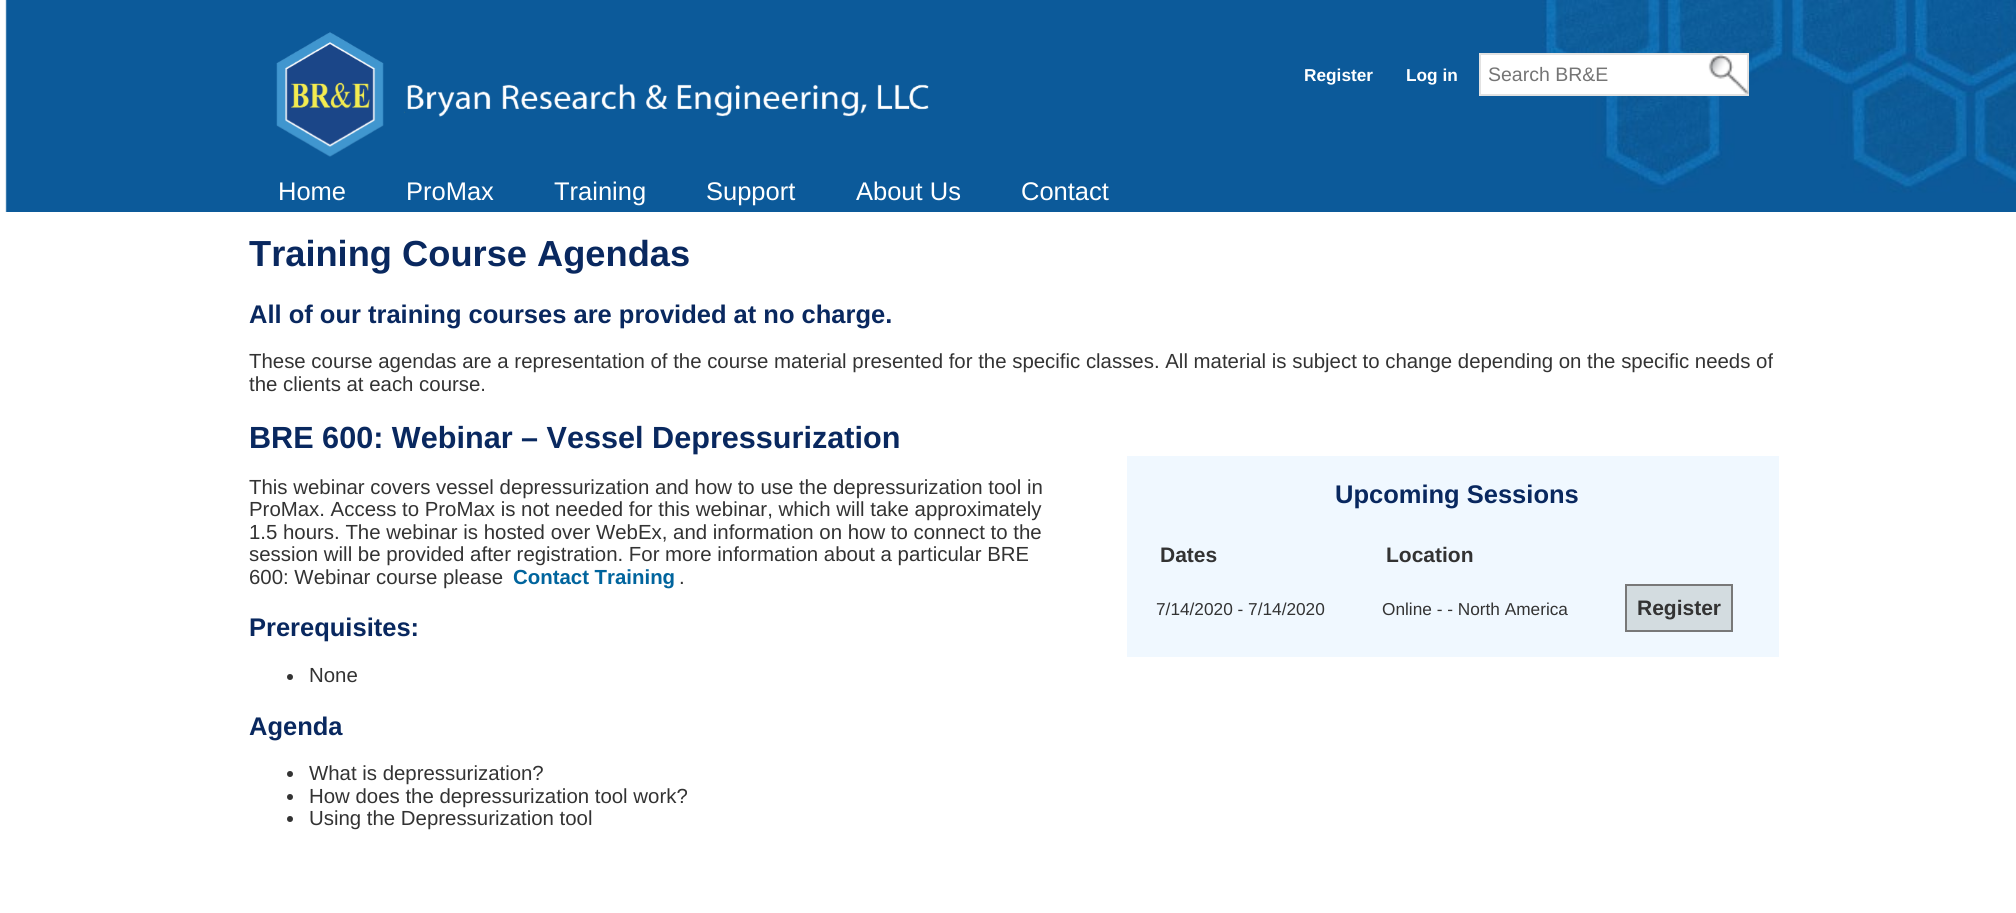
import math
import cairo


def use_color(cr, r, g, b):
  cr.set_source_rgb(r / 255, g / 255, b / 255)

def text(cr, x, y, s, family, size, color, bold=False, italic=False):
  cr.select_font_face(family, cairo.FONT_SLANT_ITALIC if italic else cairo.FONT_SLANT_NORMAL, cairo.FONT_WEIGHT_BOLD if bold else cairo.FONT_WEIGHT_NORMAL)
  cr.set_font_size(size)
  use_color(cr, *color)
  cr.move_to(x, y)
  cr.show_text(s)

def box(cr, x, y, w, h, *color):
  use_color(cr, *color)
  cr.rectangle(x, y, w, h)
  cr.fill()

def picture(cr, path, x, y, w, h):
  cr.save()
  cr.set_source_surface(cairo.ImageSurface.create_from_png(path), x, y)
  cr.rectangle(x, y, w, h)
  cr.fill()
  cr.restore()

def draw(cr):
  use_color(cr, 255, 255, 255)
  cr.paint()
  picture(cr, "img_01.png", 5, 0, 2011, 212)
  picture(cr, "img_02.png", 276, 32, 653, 125)
  use_color(cr, 255, 255, 255)
  cr.rectangle(1480, 54, 268, 41)
  cr.fill_preserve()
  use_color(cr, 226, 226, 226)
  cr.stroke()
  picture(cr, "img_03.png", 1708, 54, 41, 40)
  box(cr, 1127, 456, 652, 201, 240, 248, 255)
  use_color(cr, 211, 220, 224)
  cr.rectangle(1626, 585, 106, 46)
  cr.fill_preserve()
  use_color(cr, 120, 120, 120)
  cr.stroke()
  use_color(cr, 51, 51, 51)
  cr.arc(290, 677, 3, 0, 2 * math.pi)
  cr.fill()
  cr.arc(290, 774, 3, 0, 2 * math.pi)
  cr.fill()
  cr.arc(290, 797, 3, 0, 2 * math.pi)
  cr.fill()
  cr.arc(290, 819, 3, 0, 2 * math.pi)
  cr.fill()
  text(cr, 1304, 81, "Register", "Liberation Sans", 17.25, (255, 255, 255), bold=True)
  text(cr, 1406, 81, "Log in", "Liberation Sans", 17.25, (255, 255, 255), bold=True)
  text(cr, 1488, 81, "Search BR&E", "Liberation Sans", 19.5, (117, 117, 117))
  text(cr, 278, 200, "Home", "Liberation Sans", 25.5, (255, 255, 255))
  text(cr, 406, 200, "ProMax", "Liberation Sans", 25.5, (255, 255, 255))
  text(cr, 554, 200, "Training", "Liberation Sans", 25.5, (255, 255, 255))
  text(cr, 706, 200, "Support", "Liberation Sans", 25.5, (255, 255, 255))
  text(cr, 856, 200, "About Us", "Liberation Sans", 25.5, (255, 255, 255))
  text(cr, 1021, 200, "Contact", "Liberation Sans", 25.5, (255, 255, 255))
  text(cr, 249, 266, "Training Course Agendas", "Liberation Sans", 36.25, (9, 40, 95), bold=True)
  text(cr, 249, 323, "All of our training courses are provided at no charge.", "Liberation Sans", 25.5, (9, 40, 95), bold=True)
  text(cr, 249, 368, "These course agendas are a representation of the course material presented for the specific classes. All material is subject to change depending on the specific needs of", "Liberation Sans", 20.4, (51, 51, 51))
  text(cr, 249, 391, "the clients at each course.", "Liberation Sans", 20.4, (51, 51, 51))
  text(cr, 249, 448, "BRE 600: Webinar – Vessel Depressurization", "Liberation Sans", 30.6, (9, 40, 95), bold=True)
  text(cr, 249, 494, "This webinar covers vessel depressurization and how to use the depressurization tool in", "Liberation Sans", 20.4, (51, 51, 51))
  text(cr, 249, 516, "ProMax. Access to ProMax is not needed for this webinar, which will take approximately", "Liberation Sans", 20.4, (51, 51, 51))
  text(cr, 249, 539, "1.5 hours. The webinar is hosted over WebEx, and information on how to connect to the", "Liberation Sans", 20.4, (51, 51, 51))
  text(cr, 249, 561, "session will be provided after registration. For more information about a particular BRE", "Liberation Sans", 20.4, (51, 51, 51))
  text(cr, 249, 584, "600: Webinar course please", "Liberation Sans", 20.4, (51, 51, 51))
  text(cr, 513, 584, "Contact Training", "Liberation Sans", 20.4, (0, 100, 157), bold=True)
  text(cr, 679, 584, ".", "Liberation Sans", 20.4, (51, 51, 51))
  text(cr, 1335, 503, "Upcoming Sessions", "Liberation Sans", 25.5, (9, 40, 95), bold=True)
  text(cr, 1160, 562, "Dates", "Liberation Sans", 21, (51, 51, 51), bold=True)
  text(cr, 1386, 562, "Location", "Liberation Sans", 21, (51, 51, 51), bold=True)
  text(cr, 1156, 615, "7/14/2020 - 7/14/2020", "Liberation Sans", 17.25, (51, 51, 51))
  text(cr, 1382, 615, "Online - - North America", "Liberation Sans", 17.25, (51, 51, 51))
  text(cr, 1637, 615, "Register", "Liberation Sans", 21, (51, 51, 51), bold=True)
  text(cr, 249, 636, "Prerequisites:", "Liberation Sans", 25.5, (9, 40, 95), bold=True)
  text(cr, 309, 682, "None", "Liberation Sans", 20.4, (51, 51, 51))
  text(cr, 249, 735, "Agenda", "Liberation Sans", 25.5, (9, 40, 95), bold=True)
  text(cr, 309, 780, "What is depressurization?", "Liberation Sans", 20.4, (51, 51, 51))
  text(cr, 309, 803, "How does the depressurization tool work?", "Liberation Sans", 20.4, (51, 51, 51))
  text(cr, 309, 825, "Using the Depressurization tool", "Liberation Sans", 20.4, (51, 51, 51))


surface = cairo.ImageSurface(cairo.FORMAT_RGB24, 2016, 913)
cr = cairo.Context(surface)
options = cairo.FontOptions()
options.set_hint_metrics(cairo.HINT_METRICS_OFF)
options.set_hint_style(cairo.HINT_STYLE_NONE)
cr.set_font_options(options)
cr.set_miter_limit(4)
draw(cr)
surface.write_to_png("out.png")
